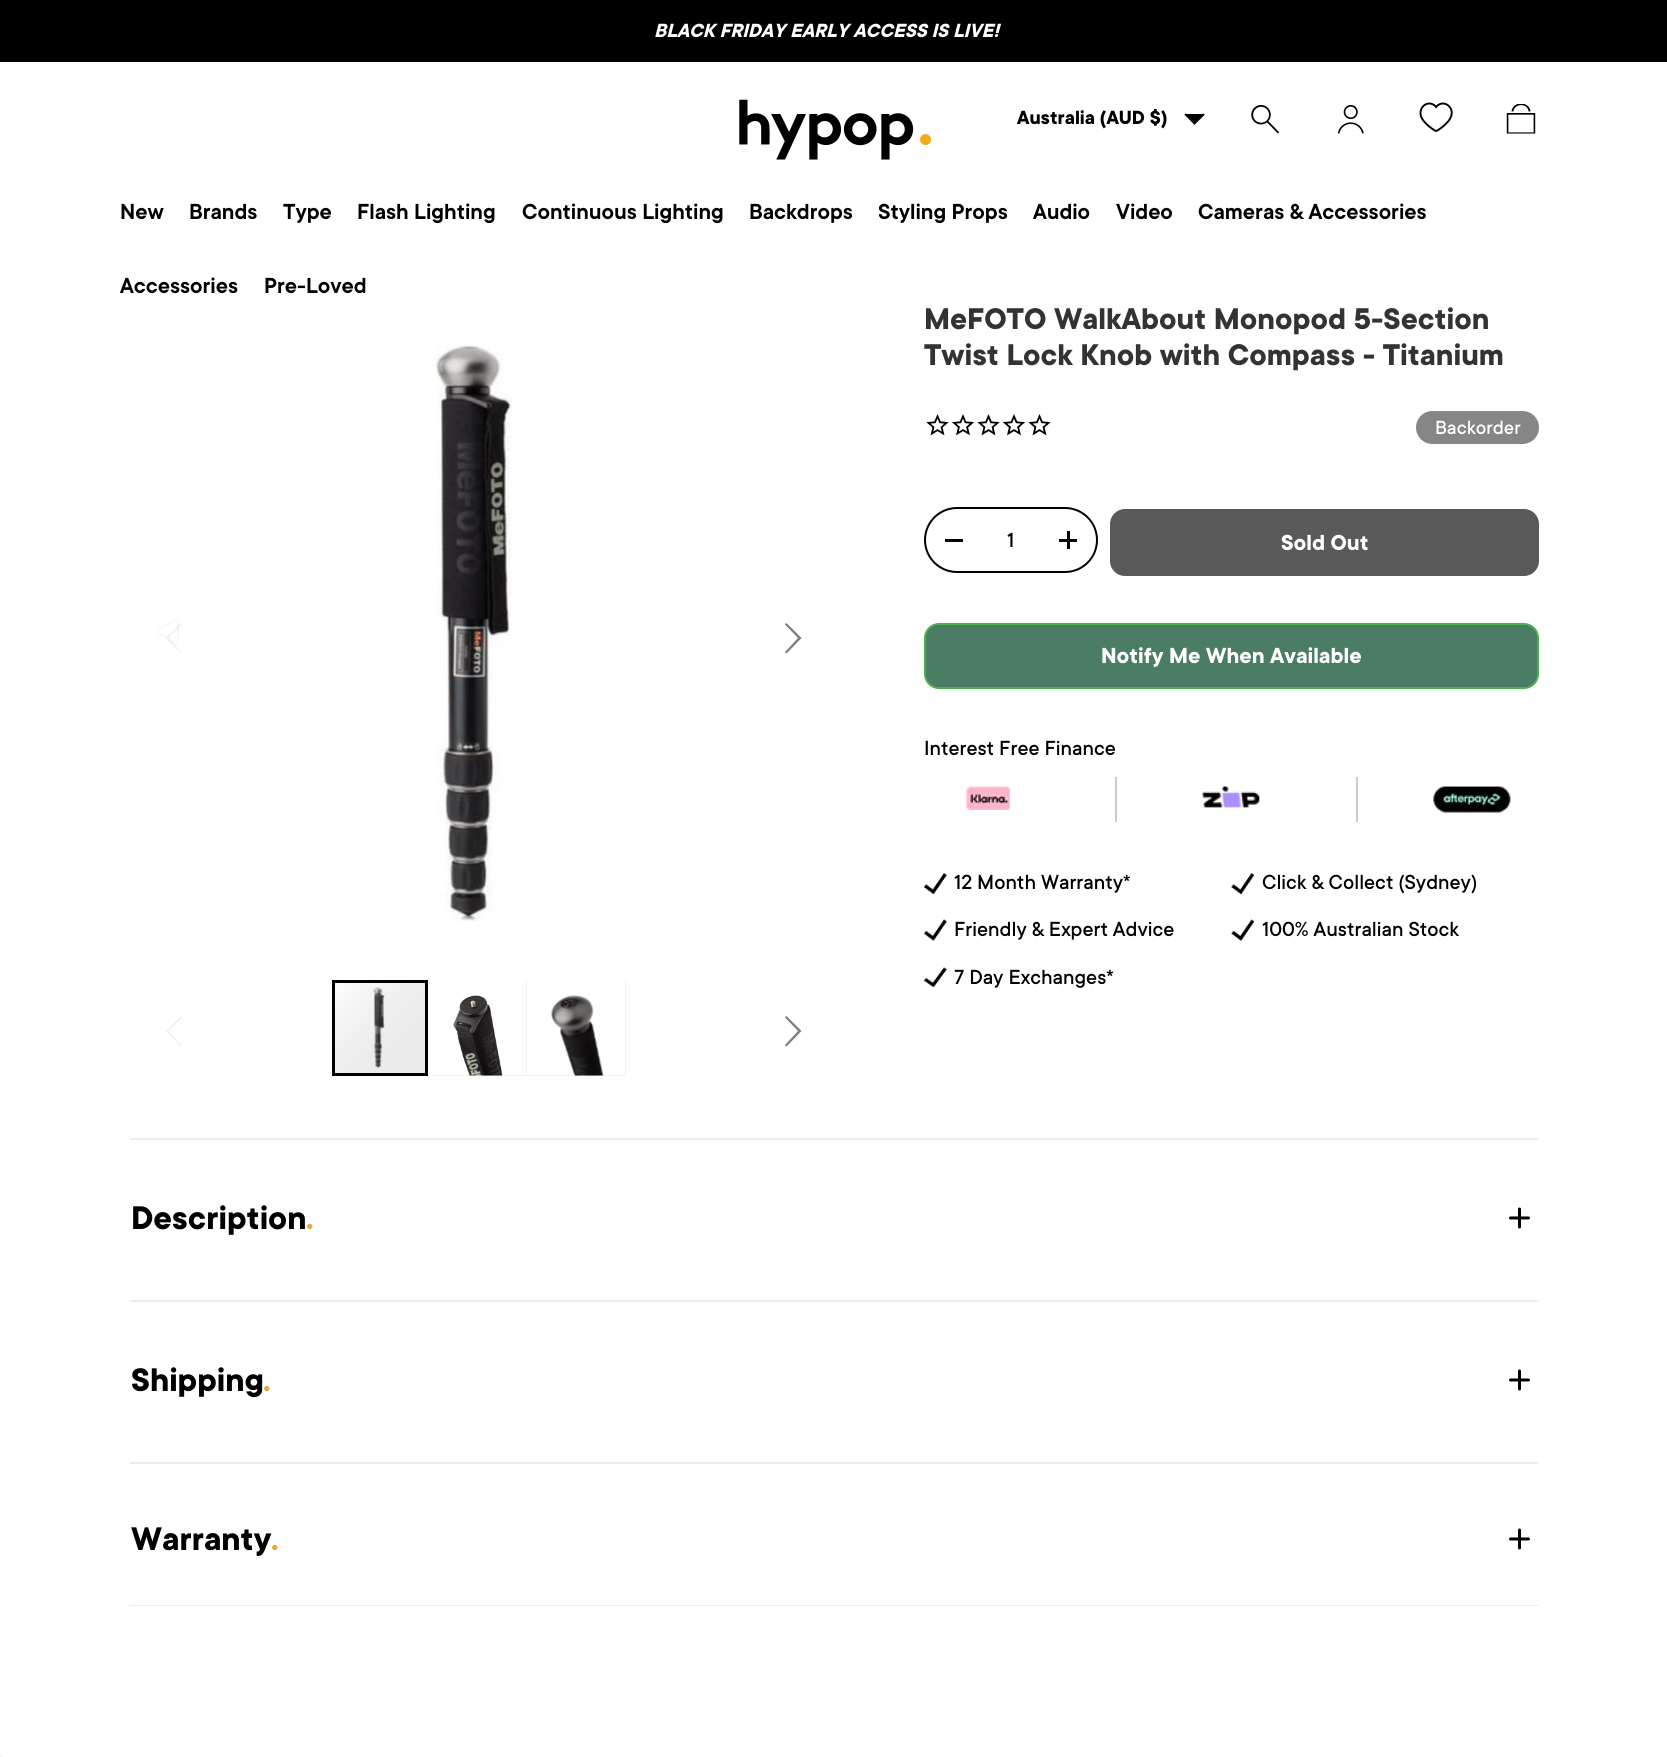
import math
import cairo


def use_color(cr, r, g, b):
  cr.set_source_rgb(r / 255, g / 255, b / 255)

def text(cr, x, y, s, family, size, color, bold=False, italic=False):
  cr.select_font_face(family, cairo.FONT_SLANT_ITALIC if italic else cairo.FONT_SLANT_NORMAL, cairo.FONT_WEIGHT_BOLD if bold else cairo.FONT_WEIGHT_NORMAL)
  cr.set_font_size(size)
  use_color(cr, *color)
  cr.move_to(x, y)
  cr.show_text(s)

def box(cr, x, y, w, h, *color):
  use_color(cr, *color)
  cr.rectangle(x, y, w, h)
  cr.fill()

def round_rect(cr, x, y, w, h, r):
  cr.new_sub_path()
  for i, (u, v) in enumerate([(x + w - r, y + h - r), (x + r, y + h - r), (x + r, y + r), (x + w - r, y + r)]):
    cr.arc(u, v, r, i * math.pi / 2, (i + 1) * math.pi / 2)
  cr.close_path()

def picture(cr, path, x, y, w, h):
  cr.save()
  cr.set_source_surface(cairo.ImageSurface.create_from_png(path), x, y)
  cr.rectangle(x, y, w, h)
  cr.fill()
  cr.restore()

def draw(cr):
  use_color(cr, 255, 255, 255)
  cr.paint()
  box(cr, 0, 0, 1667, 62, 0, 0, 0)
  picture(cr, "img_01.png", 739, 99, 192, 61)
  cr.new_path()
  cr.move_to(1204, 114)
  cr.line_to(1194.5, 123.5)
  cr.line_to(1185, 114)
  cr.fill_preserve()
  cr.set_line_width(1.9)
  cr.stroke()
  picture(cr, "img_02.png", 1251, 105, 29, 29)
  picture(cr, "img_03.png", 1337, 105, 27, 29)
  picture(cr, "img_04.png", 1419, 102, 34, 30)
  picture(cr, "img_05.png", 1506, 104, 30, 30)
  picture(cr, "img_06.png", 158, 619, 21, 26)
  cr.set_source_rgba(0.475, 0.514, 0.471, 0.1)
  cr.new_path()
  cr.move_to(181.5, 625.5)
  cr.curve_to(182, 624.5, 181.5, 623, 180.5, 623.5)
  cr.line_to(165.5, 638)
  cr.line_to(180, 653)
  cr.curve_to(180.5, 653.5, 182, 653, 181.5, 652)
  cr.line_to(168.5, 638)
  cr.close_path()
  cr.fill()
  use_color(cr, 242, 243, 242)
  cr.new_path()
  cr.move_to(181.5, 1018.5)
  cr.curve_to(182, 1017.5, 181.5, 1016, 180.5, 1016.5)
  cr.line_to(165.5, 1031)
  cr.line_to(180, 1046)
  cr.curve_to(180.5, 1046.5, 182, 1046, 181.5, 1045)
  cr.line_to(168.5, 1031)
  cr.close_path()
  cr.fill()
  picture(cr, "img_07.png", 435, 345, 77, 576)
  use_color(cr, 121, 131, 120)
  cr.new_path()
  cr.move_to(798, 638)
  cr.line_to(785, 624.5)
  cr.curve_to(785, 623.5, 786, 623, 787, 623.5)
  cr.line_to(801.5, 638)
  cr.line_to(787, 653)
  cr.curve_to(786, 653.5, 784.5, 653, 785, 652)
  cr.close_path()
  cr.fill()
  cr.new_path()
  cr.move_to(798, 1031)
  cr.line_to(785, 1017.5)
  cr.curve_to(785, 1016.5, 786, 1016, 787, 1016.5)
  cr.line_to(801.5, 1031)
  cr.line_to(787, 1046)
  cr.curve_to(786, 1046.5, 784.5, 1046, 785, 1045)
  cr.close_path()
  cr.fill()
  picture(cr, "img_10.png", 335, 983, 90, 90)
  cr.rectangle(333.5, 981.5, 93, 93)
  use_color(cr, 0, 0, 0)
  cr.set_line_width(3)
  cr.stroke()
  box(cr, 431, 980, 96, 96, 229, 229, 229)
  picture(cr, "img_08.png", 431, 980, 96, 96)
  box(cr, 530, 980, 96, 96, 229, 229, 229)
  picture(cr, "img_09.png", 530, 980, 96, 96)
  picture(cr, "img_11.png", 926, 414, 23, 22)
  picture(cr, "img_12.png", 951, 414, 24, 22)
  picture(cr, "img_11.png", 977, 414, 23, 22)
  picture(cr, "img_12.png", 1002, 414, 24, 22)
  picture(cr, "img_11.png", 1028, 414, 23, 22)
  use_color(cr, 134, 134, 134)
  round_rect(cr, 1416, 411, 123, 33, 16.5)
  cr.fill()
  round_rect(cr, 925, 508, 172, 64, 32)
  use_color(cr, 0, 0, 0)
  cr.set_line_width(2)
  cr.stroke()
  box(cr, 945, 539, 18, 3, 9, 3, 2)
  box(cr, 1059, 539, 18, 3, 9, 3, 2)
  box(cr, 1067, 531, 3, 18, 9, 3, 2)
  use_color(cr, 89, 89, 89)
  round_rect(cr, 1110, 509, 429, 67, 15)
  cr.fill()
  use_color(cr, 75, 124, 100)
  round_rect(cr, 925, 624, 613, 64, 14)
  cr.fill_preserve()
  use_color(cr, 76, 174, 76)
  cr.stroke()
  picture(cr, "img_13.png", 966, 786, 44, 25)
  box(cr, 1115, 777, 2, 45, 204, 204, 204)
  picture(cr, "img_14.png", 1202, 786, 58, 22)
  box(cr, 1356, 777, 2, 45, 204, 204, 204)
  picture(cr, "img_15.png", 1433, 786, 78, 27)
  picture(cr, "img_16.png", 924, 873, 23, 21)
  picture(cr, "img_17.png", 1231, 873, 23, 21)
  picture(cr, "img_18.png", 924, 919, 23, 22)
  picture(cr, "img_19.png", 1231, 919, 23, 22)
  picture(cr, "img_20.png", 924, 967, 23, 20)
  use_color(cr, 237, 237, 237)
  cr.new_path()
  cr.move_to(129, 1138)
  cr.line_to(1539, 1138)
  cr.line_to(1538, 1140)
  cr.line_to(130, 1140)
  cr.close_path()
  cr.fill()
  picture(cr, "img_21.png", 1509, 1207, 21, 22)
  cr.new_path()
  cr.move_to(129, 1300)
  cr.line_to(1539, 1300)
  cr.line_to(1538, 1302)
  cr.line_to(130, 1302)
  cr.close_path()
  cr.fill()
  picture(cr, "img_21.png", 1509, 1369, 21, 22)
  cr.new_path()
  cr.move_to(129, 1462)
  cr.line_to(1539, 1462)
  cr.line_to(1538, 1464)
  cr.line_to(130, 1464)
  cr.close_path()
  cr.fill()
  cr.new_path()
  cr.move_to(1539, 1606)
  cr.line_to(129, 1606)
  cr.line_to(130, 1605)
  cr.line_to(1538, 1605)
  cr.close_path()
  cr.fill()
  picture(cr, "img_21.png", 1509, 1528, 21, 22)
  box(cr, 0, 1755, 3, 2, 245, 245, 245)
  text(cr, 654, 37, "BLACK FRIDAY EARLY ACCESS IS LIVE!", "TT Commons", 21, (255, 255, 255), bold=True, italic=True)
  text(cr, 1017, 124, "Australia (AUD $)", "TT Commons", 21, (0, 0, 0), bold=True)
  text(cr, 120, 219, "New", "TT Commons SemiBold", 24, (0, 0, 0))
  text(cr, 189, 219, "Brands", "TT Commons SemiBold", 24, (0, 0, 0))
  text(cr, 283, 219, "Type", "TT Commons SemiBold", 24, (0, 0, 0))
  text(cr, 357, 219, "Flash Lighting", "TT Commons SemiBold", 24, (0, 0, 0))
  text(cr, 522, 219, "Continuous Lighting", "TT Commons SemiBold", 24, (0, 0, 0))
  text(cr, 749, 219, "Backdrops", "TT Commons SemiBold", 24, (0, 0, 0))
  text(cr, 878, 219, "Styling Props", "TT Commons SemiBold", 24, (0, 0, 0))
  text(cr, 1033, 219, "Audio", "TT Commons SemiBold", 24, (0, 0, 0))
  text(cr, 1116, 219, "Video", "TT Commons SemiBold", 24, (0, 0, 0))
  text(cr, 1198, 219, "Cameras & Accessories", "TT Commons SemiBold", 24, (0, 0, 0))
  text(cr, 120, 293, "Accessories", "TT Commons SemiBold", 24, (0, 0, 0))
  text(cr, 264, 293, "Pre-Loved", "TT Commons SemiBold", 24, (0, 0, 0))
  text(cr, 924, 329, "MeFOTO WalkAbout Monopod 5-Section", "TT Commons", 33, (51, 51, 51), bold=True)
  text(cr, 924, 365, "Twist Lock Knob with Compass - Titanium", "TT Commons", 33, (51, 51, 51), bold=True)
  text(cr, 1435, 434, "Backorder", "TT Commons Medium", 21, (255, 255, 255))
  text(cr, 1007, 547, "1", "TT Commons Medium", 22.5, (9, 3, 2))
  text(cr, 1281, 550, "Sold Out", "TT Commons", 24, (255, 255, 255), bold=True)
  text(cr, 1101, 663, "Notify Me When Available", "TT Commons", 24, (255, 255, 255), bold=True)
  text(cr, 924, 755, "Interest Free Finance", "TT Commons Medium", 22.5, (0, 0, 0))
  text(cr, 954, 889, "12 Month Warranty*", "TT Commons Medium", 22.5, (0, 0, 0))
  text(cr, 1262, 889, "Click & Collect (Sydney)", "TT Commons Medium", 22.5, (0, 0, 0))
  text(cr, 954, 936, "Friendly & Expert Advice", "TT Commons Medium", 22.5, (0, 0, 0))
  text(cr, 1262, 936, "100% Australian Stock", "TT Commons Medium", 22.5, (0, 0, 0))
  text(cr, 954, 984, "7 Day Exchanges*", "TT Commons Medium", 22.5, (0, 0, 0))
  text(cr, 131, 1229, "Description", "TT Commons", 36, (0, 0, 0), bold=True)
  text(cr, 306, 1229, ".", "TT Commons", 36, (228, 171, 65), bold=True)
  text(cr, 131, 1391, "Shipping", "TT Commons", 36, (0, 0, 0), bold=True)
  text(cr, 263, 1391, ".", "TT Commons", 36, (228, 171, 65), bold=True)
  text(cr, 131, 1550, "Warranty", "TT Commons", 36, (0, 0, 0), bold=True)
  text(cr, 271, 1550, ".", "TT Commons", 36, (228, 171, 65), bold=True)


surface = cairo.ImageSurface(cairo.FORMAT_RGB24, 1667, 1757)
cr = cairo.Context(surface)
options = cairo.FontOptions()
options.set_hint_metrics(cairo.HINT_METRICS_OFF)
options.set_hint_style(cairo.HINT_STYLE_NONE)
cr.set_font_options(options)
cr.set_miter_limit(4)
draw(cr)
surface.write_to_png("out.png")
